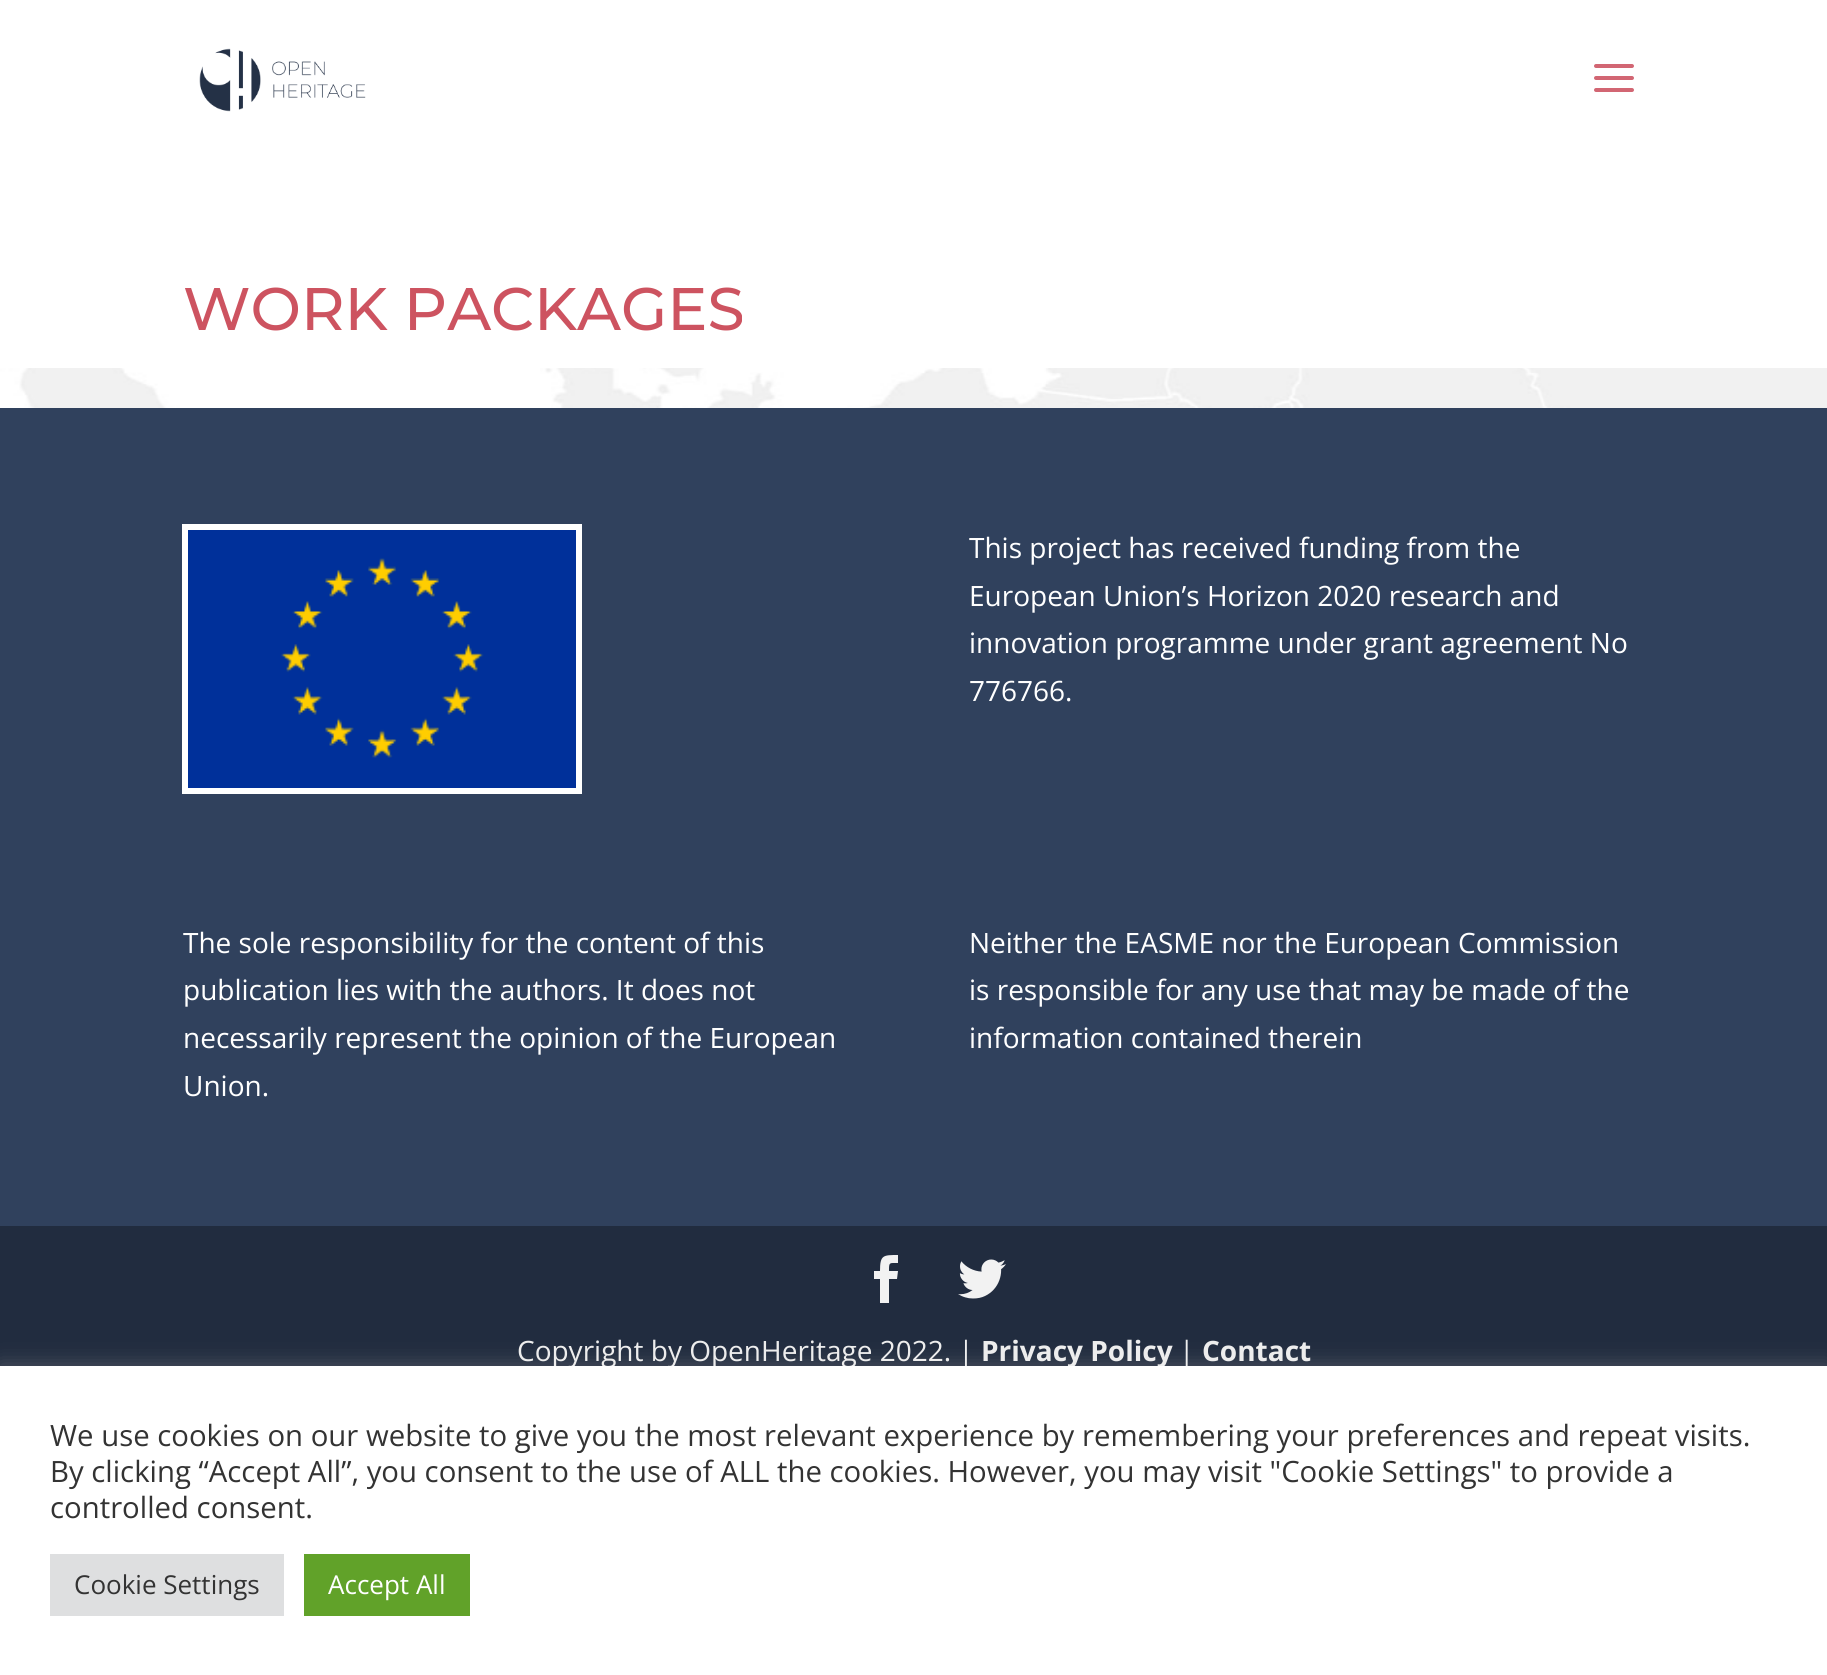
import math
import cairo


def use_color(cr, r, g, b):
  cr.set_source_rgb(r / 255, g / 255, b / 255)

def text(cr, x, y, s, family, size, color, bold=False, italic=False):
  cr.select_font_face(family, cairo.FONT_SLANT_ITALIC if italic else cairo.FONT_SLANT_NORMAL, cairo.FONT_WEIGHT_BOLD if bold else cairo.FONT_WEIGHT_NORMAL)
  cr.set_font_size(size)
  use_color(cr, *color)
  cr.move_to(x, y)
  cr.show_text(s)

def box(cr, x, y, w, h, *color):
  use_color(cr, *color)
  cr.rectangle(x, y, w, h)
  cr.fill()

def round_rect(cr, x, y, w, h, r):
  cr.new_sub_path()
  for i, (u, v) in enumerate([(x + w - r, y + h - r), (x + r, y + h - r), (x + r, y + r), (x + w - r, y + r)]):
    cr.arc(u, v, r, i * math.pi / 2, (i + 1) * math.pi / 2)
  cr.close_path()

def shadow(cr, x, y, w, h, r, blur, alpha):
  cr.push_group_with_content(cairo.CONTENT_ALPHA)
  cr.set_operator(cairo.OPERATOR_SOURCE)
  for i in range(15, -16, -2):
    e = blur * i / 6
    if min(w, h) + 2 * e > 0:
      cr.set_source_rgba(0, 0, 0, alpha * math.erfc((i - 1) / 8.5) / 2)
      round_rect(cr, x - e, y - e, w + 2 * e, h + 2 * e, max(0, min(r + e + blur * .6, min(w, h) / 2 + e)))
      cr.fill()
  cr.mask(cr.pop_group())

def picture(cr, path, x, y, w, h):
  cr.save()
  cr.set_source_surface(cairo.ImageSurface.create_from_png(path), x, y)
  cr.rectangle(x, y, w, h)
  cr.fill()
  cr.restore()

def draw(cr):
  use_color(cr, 255, 255, 255)
  cr.paint()
  picture(cr, "img_01.png", 0, 368, 1827, 40)
  picture(cr, "img_02.png", 199, 48, 167, 64)
  picture(cr, "img_03.png", 1594, 64, 40, 28)
  box(cr, 0, 408, 1827, 818, 48, 65, 93)
  cr.rectangle(185, 527, 394, 264)
  use_color(cr, 255, 255, 255)
  cr.set_line_width(6)
  cr.stroke()
  picture(cr, "img_04.png", 188, 530, 388, 258)
  box(cr, 0, 1226, 1827, 140, 33, 44, 63)
  use_color(cr, 242, 242, 242)
  cr.new_path()
  cr.move_to(880, 1303)
  cr.line_to(889, 1303)
  cr.line_to(889, 1279)
  cr.line_to(897, 1279)
  cr.line_to(898, 1271)
  cr.line_to(889, 1271)
  cr.curve_to(889, 1262, 889, 1263, 898, 1263)
  cr.line_to(898, 1255)
  cr.curve_to(883, 1255, 880, 1255, 880, 1271)
  cr.line_to(874, 1271)
  cr.line_to(874, 1279)
  cr.line_to(880, 1279)
  cr.close_path()
  cr.fill()
  picture(cr, "img_05.png", 958, 1259, 48, 40)
  use_color(cr, 172, 171, 171)
  shadow(cr, 0, 1364, 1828, 310, 0, 10, 0.3)
  text(cr, 183, 330, "WORK PACKAGES", "Montserrat Medium", 60, (205, 83, 96))
  text(cr, 969, 558, "This project has received funding from the", "Open Sans", 28, (255, 255, 255))
  text(cr, 969, 606, "European Union’s Horizon 2020 research and", "Open Sans", 28, (255, 255, 255))
  text(cr, 969, 653, "innovation programme under grant agreement No", "Open Sans", 28, (255, 255, 255))
  text(cr, 969, 701, "776766.", "Open Sans", 28, (255, 255, 255))
  text(cr, 183, 953, "The sole responsibility for the content of this", "Open Sans", 28, (255, 255, 255))
  text(cr, 183, 1000, "publication lies with the authors. It does not", "Open Sans", 28, (255, 255, 255))
  text(cr, 183, 1048, "necessarily represent the opinion of the European", "Open Sans", 28, (255, 255, 255))
  text(cr, 183, 1096, "Union.", "Open Sans", 28, (255, 255, 255))
  text(cr, 969, 953, "Neither the EASME nor the European Commission", "Open Sans", 28, (255, 255, 255))
  text(cr, 969, 1000, "is responsible for any use that may be made of the", "Open Sans", 28, (255, 255, 255))
  text(cr, 969, 1048, "information contained therein", "Open Sans", 28, (255, 255, 255))
  text(cr, 517, 1361, "Copyright by OpenHeritage 2022. |", "Open Sans", 28, (237, 237, 237))
  text(cr, 981, 1361, "Privacy Policy", "Open Sans", 28, (237, 237, 237), bold=True)
  text(cr, 1179, 1361, "|", "Open Sans", 28, (237, 237, 237))
  text(cr, 1202, 1361, "Contact", "Open Sans", 28, (237, 237, 237), bold=True)
  box(cr, 0, 1366, 1827, 309, 255, 255, 255)
  text(cr, 50, 1446, "We use cookies on our website to give you the most relevant experience by remembering your preferences and repeat visits.", "Open Sans", 29.33, (51, 51, 51))
  text(cr, 50, 1482, "By clicking “Accept All”, you consent to the use of ALL the cookies. However, you may visit \"Cookie Settings\" to provide a", "Open Sans", 29.33, (51, 51, 51))
  text(cr, 50, 1518, "controlled consent.", "Open Sans", 29.33, (51, 51, 51))
  box(cr, 50, 1554, 234, 62, 222, 223, 224)
  text(cr, 74, 1594, "Cookie Settings", "Open Sans", 26, (51, 51, 51))
  box(cr, 304, 1554, 166, 62, 97, 162, 41)
  text(cr, 328, 1594, "Accept All", "Open Sans", 26, (255, 255, 255))


surface = cairo.ImageSurface(cairo.FORMAT_RGB24, 1827, 1675)
cr = cairo.Context(surface)
options = cairo.FontOptions()
options.set_hint_metrics(cairo.HINT_METRICS_OFF)
options.set_hint_style(cairo.HINT_STYLE_NONE)
cr.set_font_options(options)
cr.set_miter_limit(4)
draw(cr)
surface.write_to_png("out.png")
